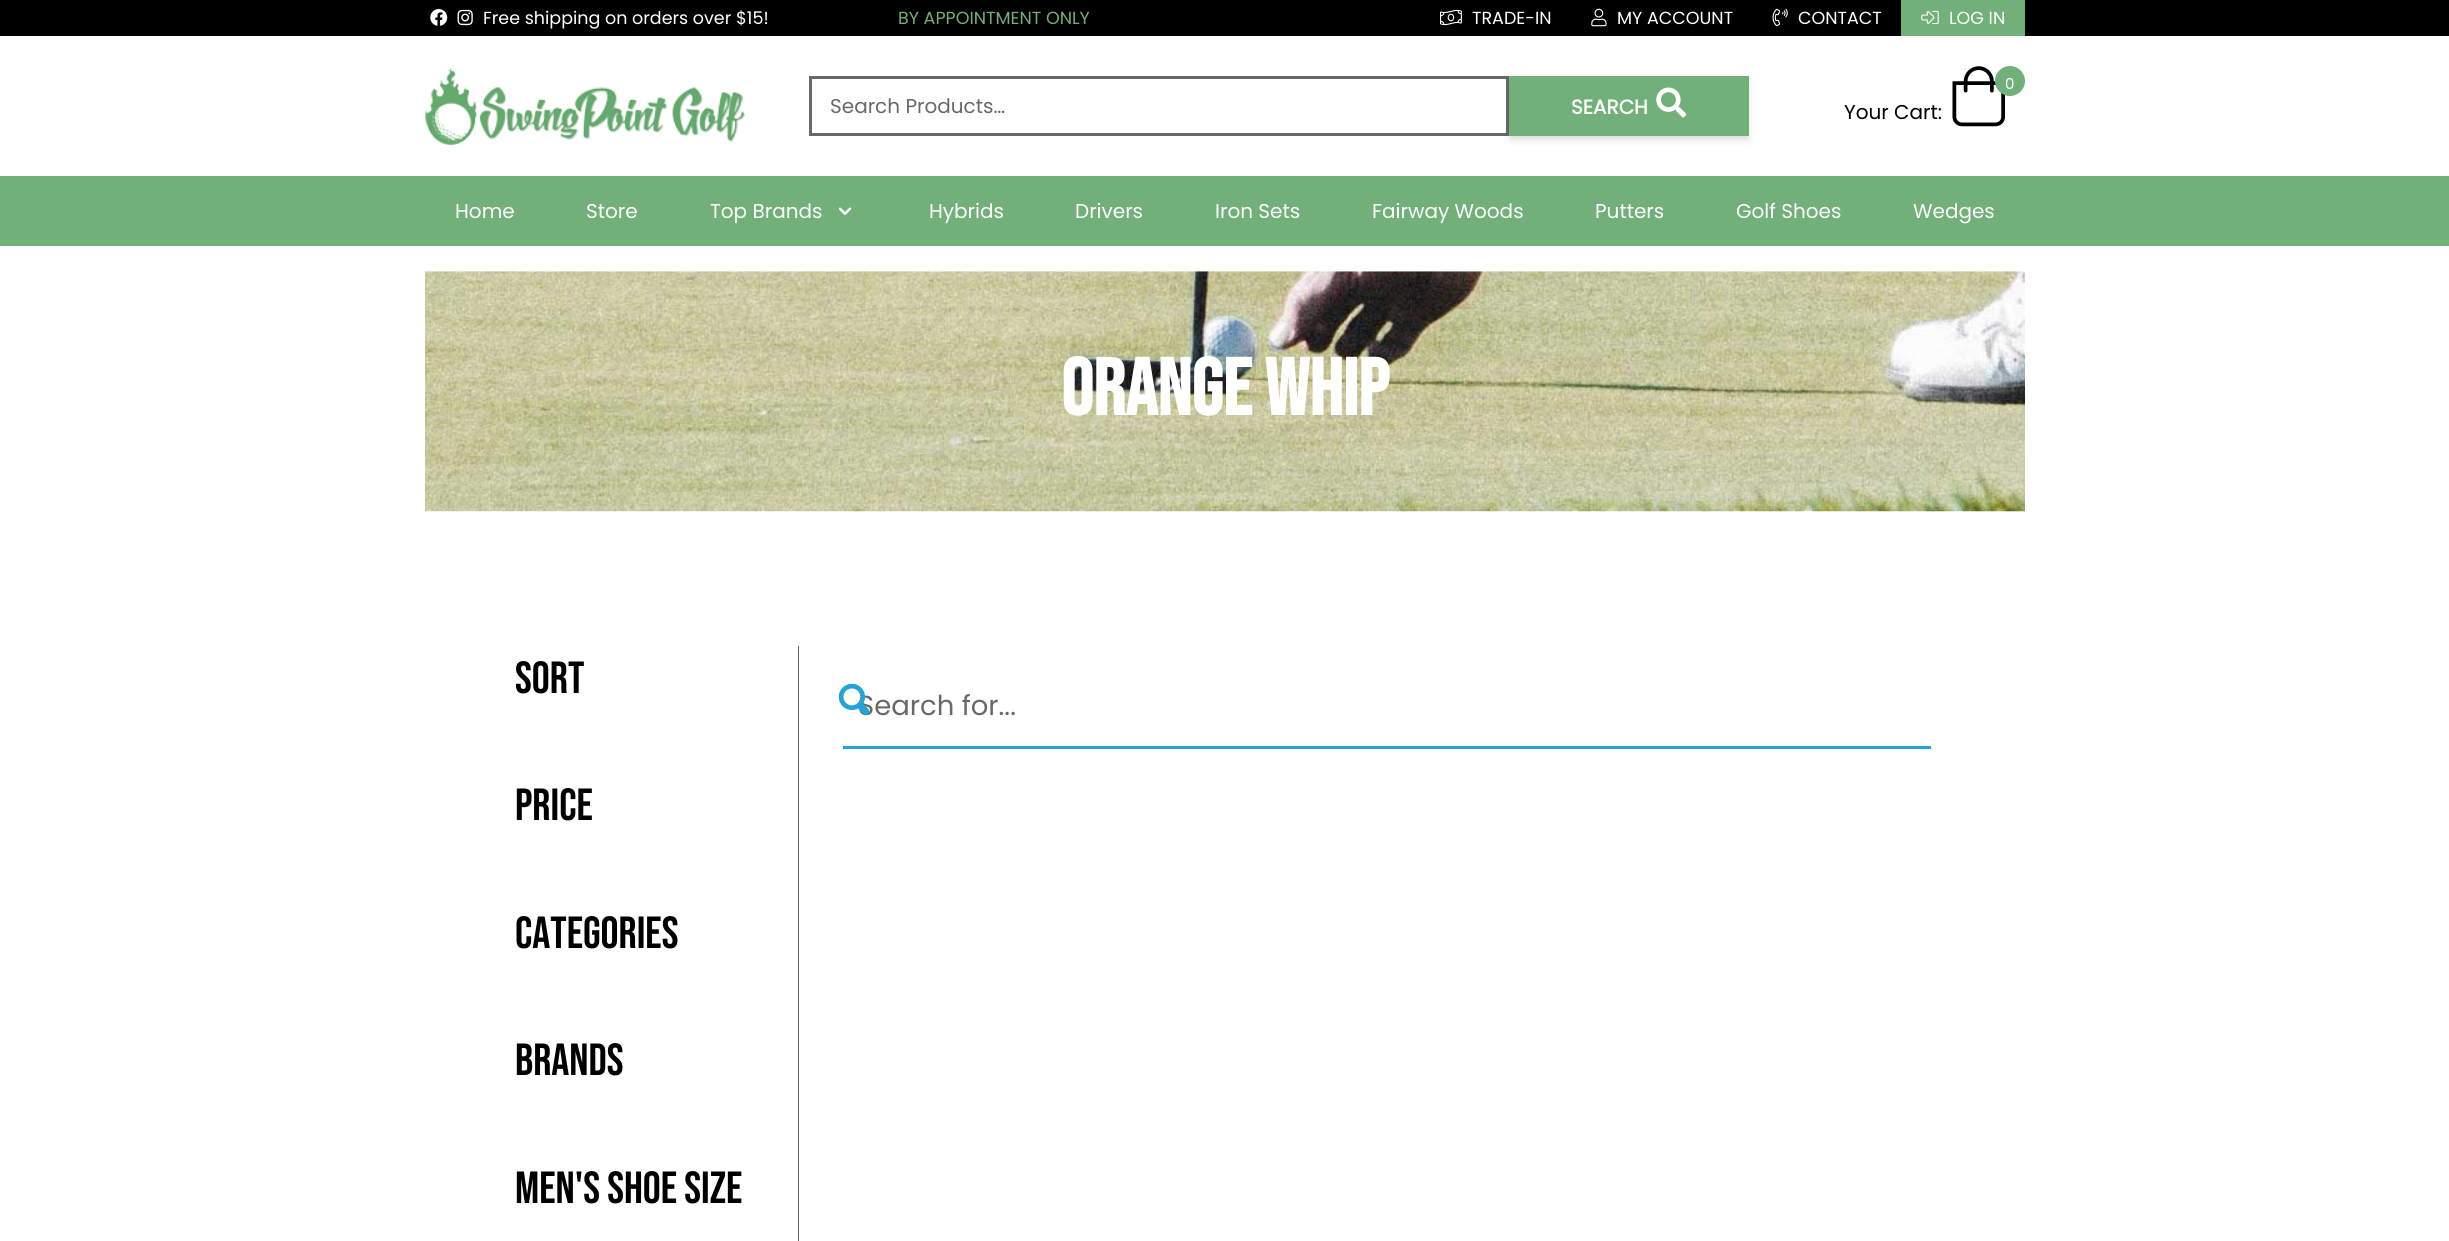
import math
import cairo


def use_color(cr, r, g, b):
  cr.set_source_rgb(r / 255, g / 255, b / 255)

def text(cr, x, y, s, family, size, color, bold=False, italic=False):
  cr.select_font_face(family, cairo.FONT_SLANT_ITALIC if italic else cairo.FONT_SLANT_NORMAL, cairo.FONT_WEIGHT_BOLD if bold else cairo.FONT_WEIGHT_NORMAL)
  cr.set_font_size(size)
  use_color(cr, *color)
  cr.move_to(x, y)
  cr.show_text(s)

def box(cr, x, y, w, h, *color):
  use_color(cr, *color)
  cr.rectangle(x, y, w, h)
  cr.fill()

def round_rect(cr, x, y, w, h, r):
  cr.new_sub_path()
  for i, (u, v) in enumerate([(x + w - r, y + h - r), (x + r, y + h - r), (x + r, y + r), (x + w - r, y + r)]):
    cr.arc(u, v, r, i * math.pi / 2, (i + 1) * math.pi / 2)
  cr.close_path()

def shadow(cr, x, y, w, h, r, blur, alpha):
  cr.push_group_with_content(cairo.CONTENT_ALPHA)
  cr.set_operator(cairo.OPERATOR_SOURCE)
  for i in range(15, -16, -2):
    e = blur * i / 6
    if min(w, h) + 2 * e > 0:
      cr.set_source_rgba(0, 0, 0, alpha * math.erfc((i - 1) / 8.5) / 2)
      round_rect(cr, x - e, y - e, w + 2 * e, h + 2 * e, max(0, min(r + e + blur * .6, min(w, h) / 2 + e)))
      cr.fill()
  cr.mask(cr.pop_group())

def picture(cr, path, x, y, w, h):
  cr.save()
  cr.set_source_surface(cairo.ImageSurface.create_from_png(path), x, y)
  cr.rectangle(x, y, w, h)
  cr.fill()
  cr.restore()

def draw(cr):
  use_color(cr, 255, 255, 255)
  cr.paint()
  box(cr, 0, 0, 2449, 36, 0, 0, 0)
  picture(cr, "img_01.png", 430, 9, 18, 17)
  picture(cr, "img_02.png", 457, 9, 16, 17)
  picture(cr, "img_03.png", 1440, 9, 22, 17)
  picture(cr, "img_04.png", 1591, 8, 16, 19)
  picture(cr, "img_05.png", 1772, 8, 16, 19)
  box(cr, 1901, 0, 124, 36, 113, 176, 120)
  picture(cr, "img_06.png", 1921, 10, 18, 15)
  picture(cr, "img_07.png", 425, 67, 320, 78)
  cr.rectangle(810.5, 77.5, 697, 57)
  use_color(cr, 105, 104, 105)
  cr.set_line_width(3)
  cr.stroke()
  use_color(cr, 0, 0, 0)
  shadow(cr, 1510, 80, 238, 58, 0, 2.5, 0.06)
  shadow(cr, 1510, 83, 238, 57, 0, 4, 0.1)
  box(cr, 1509, 76, 240, 60, 113, 176, 120)
  picture(cr, "img_08.png", 1656, 87, 31, 31)
  picture(cr, "img_09.png", 1952, 66, 53, 61)
  cr.arc(2010, 81, 15, 0, 2 * math.pi)
  cr.fill()
  box(cr, 0, 176, 2449, 70, 113, 176, 120)
  picture(cr, "img_10.png", 838, 207, 14, 8)
  picture(cr, "img_11.png", 425, 271, 1600, 241)
  box(cr, 798, 646, 1, 595, 102, 102, 102)
  box(cr, 843, 746, 1088, 3, 33, 164, 215)
  text(cr, 483, 24, "Free shipping on orders over $15!", "Poppins", 17.5, (255, 255, 255))
  text(cr, 898, 24, "BY APPOINTMENT ONLY", "Poppins", 17.5, (113, 176, 120))
  text(cr, 1472, 24, "TRADE-IN", "Poppins", 17.5, (255, 255, 255))
  text(cr, 1617, 24, "MY ACCOUNT", "Poppins", 17.5, (255, 255, 255))
  text(cr, 1798, 24, "CONTACT", "Poppins", 17.5, (255, 255, 255))
  text(cr, 1949, 24, "LOG IN", "Poppins", 17.5, (255, 255, 255))
  text(cr, 830, 113, "Search Products…", "Poppins", 20, (105, 104, 105))
  text(cr, 1571, 114, "SEARCH", "Poppins", 20, (255, 255, 255), bold=True)
  text(cr, 2005, 89, "0", "Poppins", 15, (255, 255, 255))
  text(cr, 1844, 119, "Your Cart:", "Poppins", 20, (0, 0, 0))
  text(cr, 455, 218, "Home", "Poppins", 20, (255, 255, 255))
  text(cr, 586, 218, "Store", "Poppins", 20, (255, 255, 255))
  text(cr, 710, 218, "Top Brands", "Poppins", 20, (255, 255, 255))
  text(cr, 929, 218, "Hybrids", "Poppins", 20, (255, 255, 255))
  text(cr, 1075, 218, "Drivers", "Poppins", 20, (255, 255, 255))
  text(cr, 1215, 218, "Iron Sets", "Poppins", 20, (255, 255, 255))
  text(cr, 1372, 218, "Fairway Woods", "Poppins", 20, (255, 255, 255))
  text(cr, 1595, 218, "Putters", "Poppins", 20, (255, 255, 255))
  text(cr, 1736, 218, "Golf Shoes", "Poppins", 20, (255, 255, 255))
  text(cr, 1913, 218, "Wedges", "Poppins", 20, (255, 255, 255))
  text(cr, 1061, 415, "Orange Whip", "Bebas Neue", 80, (255, 255, 255), bold=True)
  text(cr, 515, 693, "Sort", "Bebas Neue", 45, (0, 0, 0))
  text(cr, 515, 820, "Price", "Bebas Neue", 45, (0, 0, 0))
  text(cr, 515, 948, "Categories", "Bebas Neue", 45, (0, 0, 0))
  text(cr, 515, 1075, "Brands", "Bebas Neue", 45, (0, 0, 0))
  text(cr, 515, 1203, "Men's Shoe Size", "Bebas Neue", 45, (0, 0, 0))
  text(cr, 858, 715, "Search for...", "Poppins", 27.5, (105, 104, 105))
  picture(cr, "img_12.png", 839, 684, 31, 31)


surface = cairo.ImageSurface(cairo.FORMAT_RGB24, 2449, 1241)
cr = cairo.Context(surface)
options = cairo.FontOptions()
options.set_hint_metrics(cairo.HINT_METRICS_OFF)
options.set_hint_style(cairo.HINT_STYLE_NONE)
cr.set_font_options(options)
cr.set_miter_limit(4)
draw(cr)
surface.write_to_png("out.png")
